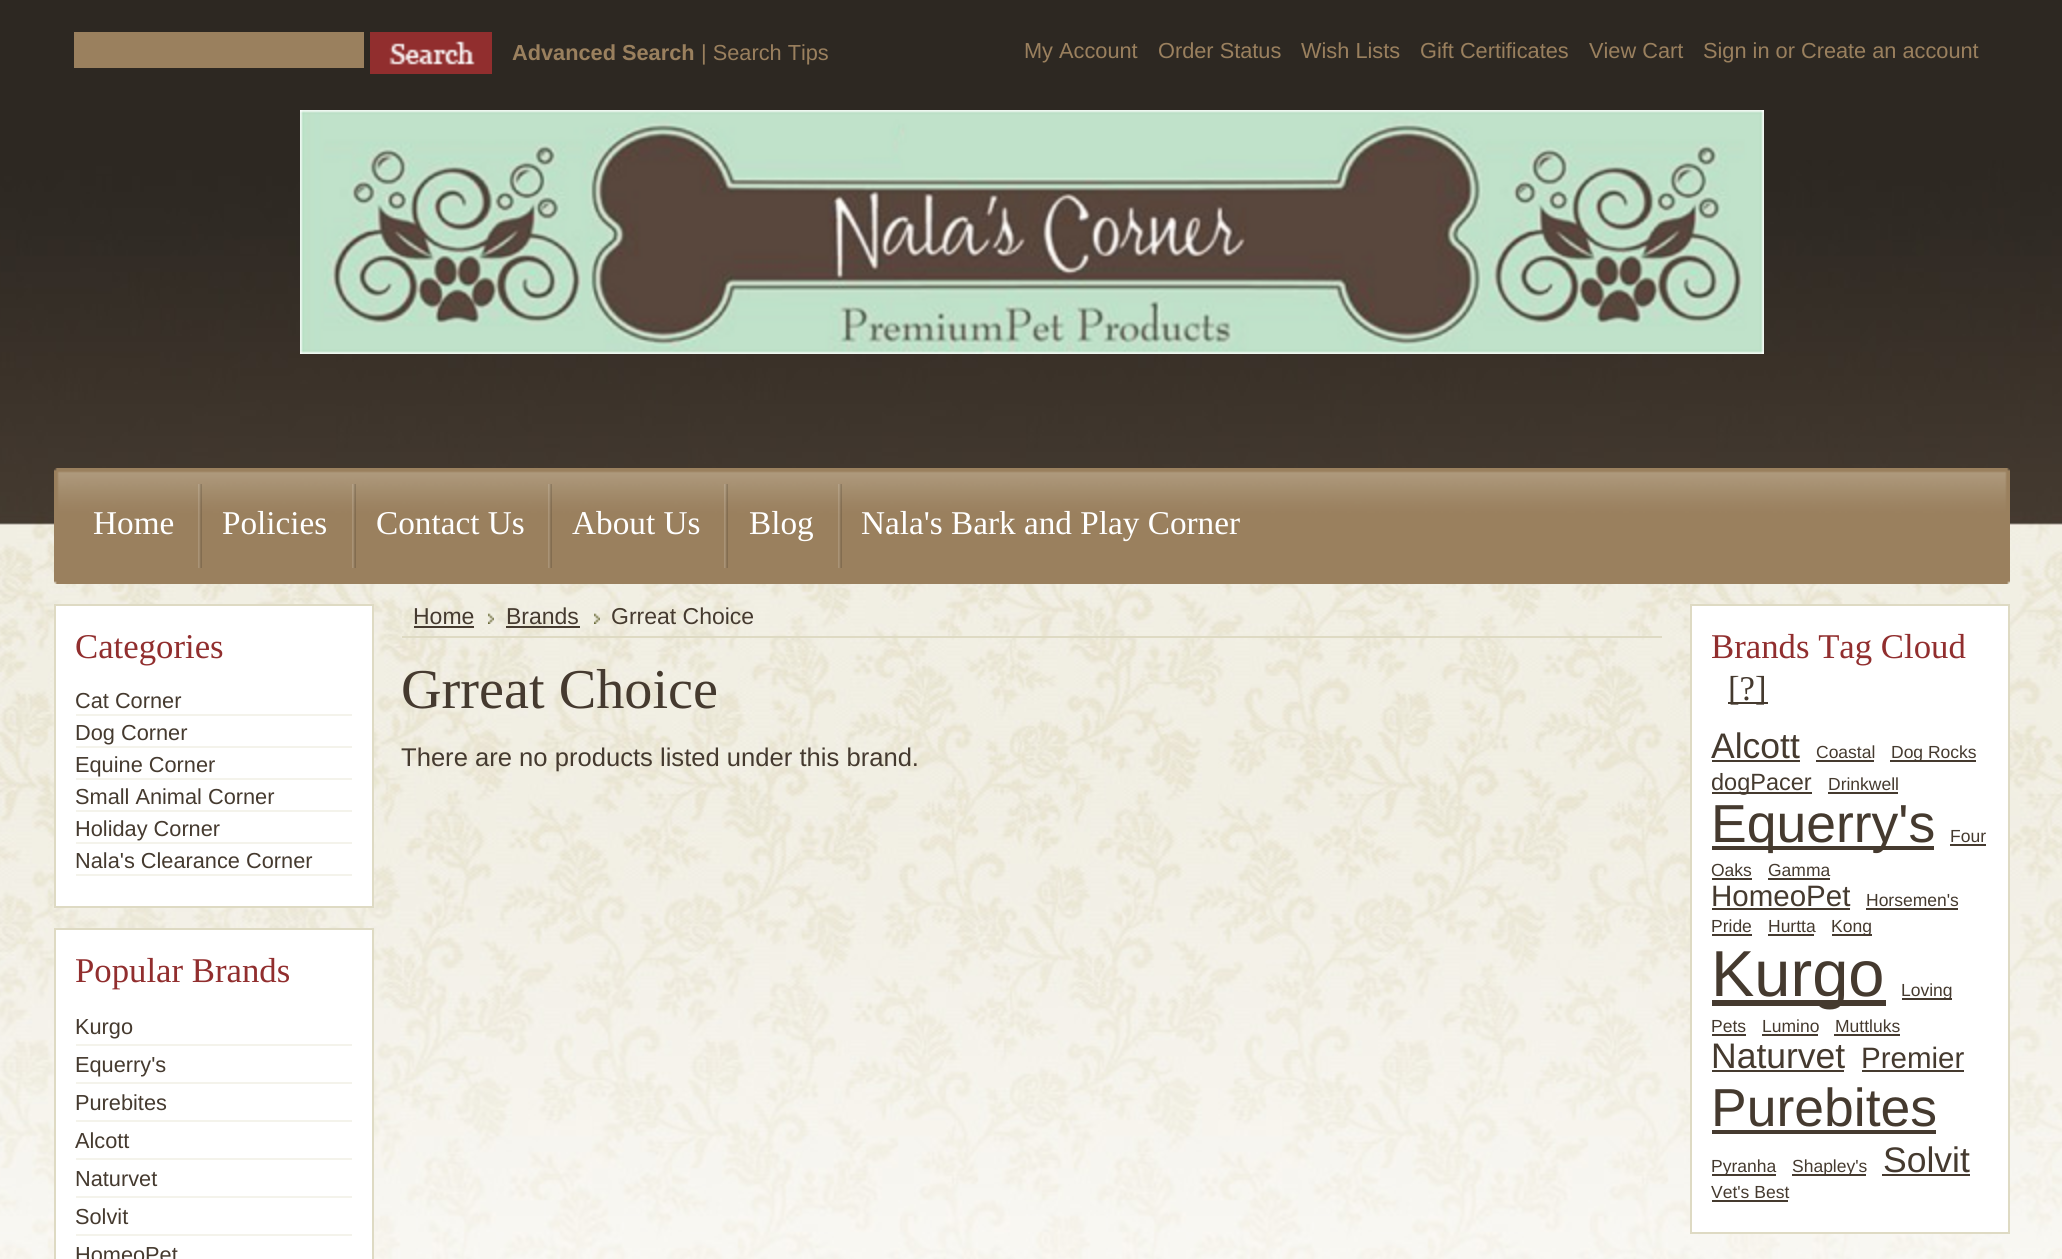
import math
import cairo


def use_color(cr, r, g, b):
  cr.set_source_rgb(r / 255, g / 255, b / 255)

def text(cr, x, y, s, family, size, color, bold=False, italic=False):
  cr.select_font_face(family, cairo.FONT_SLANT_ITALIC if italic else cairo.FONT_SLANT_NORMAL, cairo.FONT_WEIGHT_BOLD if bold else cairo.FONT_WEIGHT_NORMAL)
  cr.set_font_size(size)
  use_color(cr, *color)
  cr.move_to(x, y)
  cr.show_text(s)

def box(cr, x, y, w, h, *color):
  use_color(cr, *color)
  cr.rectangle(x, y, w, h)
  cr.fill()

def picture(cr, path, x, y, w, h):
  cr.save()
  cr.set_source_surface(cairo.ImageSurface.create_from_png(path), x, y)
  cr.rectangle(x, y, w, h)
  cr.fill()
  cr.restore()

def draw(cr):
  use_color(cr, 255, 255, 255)
  cr.paint()
  picture(cr, "img_01.png", 0, 0, 2062, 1259)
  box(cr, 74, 32, 290, 36, 154, 128, 94)
  picture(cr, "img_02.png", 370, 32, 122, 42)
  picture(cr, "img_03.png", 300, 110, 1464, 244)
  picture(cr, "img_04.png", 54, 468, 1956, 116)
  picture(cr, "img_05.png", 198, 484, 4, 84)
  picture(cr, "img_05.png", 352, 484, 4, 84)
  picture(cr, "img_05.png", 548, 484, 4, 84)
  picture(cr, "img_05.png", 724, 484, 4, 84)
  picture(cr, "img_05.png", 838, 484, 4, 84)
  use_color(cr, 255, 255, 255)
  cr.rectangle(55, 605, 318, 302)
  cr.fill_preserve()
  use_color(cr, 222, 218, 195)
  cr.stroke()
  box(cr, 76, 714, 276, 2, 244, 243, 235)
  box(cr, 76, 746, 276, 2, 244, 243, 235)
  box(cr, 76, 778, 276, 2, 244, 243, 235)
  box(cr, 76, 810, 276, 2, 244, 243, 235)
  box(cr, 76, 842, 276, 2, 244, 243, 235)
  box(cr, 76, 874, 276, 2, 244, 243, 235)
  use_color(cr, 255, 255, 255)
  cr.rectangle(55, 929, 318, 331)
  cr.fill_preserve()
  use_color(cr, 222, 218, 195)
  cr.stroke()
  box(cr, 76, 1044, 276, 2, 244, 243, 235)
  box(cr, 76, 1082, 276, 2, 244, 243, 235)
  box(cr, 76, 1120, 276, 2, 244, 243, 235)
  box(cr, 76, 1158, 276, 2, 244, 243, 235)
  box(cr, 76, 1196, 276, 2, 244, 243, 235)
  box(cr, 76, 1234, 276, 2, 244, 243, 235)
  box(cr, 402, 636, 1260, 2, 222, 218, 195)
  box(cr, 414, 626, 60, 2, 69, 58, 47)
  picture(cr, "img_06.png", 488, 613, 6, 11)
  box(cr, 506, 626, 74, 2, 69, 58, 47)
  picture(cr, "img_07.png", 594, 613, 6, 11)
  use_color(cr, 255, 255, 255)
  cr.rectangle(1691, 605, 318, 628)
  cr.fill_preserve()
  use_color(cr, 222, 218, 195)
  cr.stroke()
  box(cr, 1728, 702, 40, 2, 69, 58, 47)
  box(cr, 1712, 760, 88, 2, 69, 58, 47)
  box(cr, 1816, 760, 58, 2, 69, 58, 47)
  box(cr, 1890, 760, 86, 2, 69, 58, 47)
  box(cr, 1712, 792, 100, 2, 69, 58, 47)
  box(cr, 1828, 792, 70, 2, 69, 58, 47)
  box(cr, 1712, 846, 222, 4, 69, 58, 47)
  box(cr, 1950, 844, 36, 2, 69, 58, 47)
  box(cr, 1712, 878, 40, 2, 69, 58, 47)
  box(cr, 1768, 878, 62, 2, 69, 58, 47)
  box(cr, 1712, 908, 138, 2, 69, 58, 47)
  box(cr, 1866, 908, 92, 2, 69, 58, 47)
  box(cr, 1712, 934, 40, 2, 69, 58, 47)
  box(cr, 1768, 934, 46, 2, 69, 58, 47)
  box(cr, 1832, 934, 40, 2, 69, 58, 47)
  box(cr, 1712, 1000, 174, 6, 69, 58, 47)
  box(cr, 1902, 998, 50, 2, 69, 58, 47)
  box(cr, 1712, 1034, 34, 2, 69, 58, 47)
  box(cr, 1762, 1034, 56, 2, 69, 58, 47)
  box(cr, 1834, 1034, 66, 2, 69, 58, 47)
  box(cr, 1712, 1070, 132, 2, 69, 58, 47)
  box(cr, 1862, 1070, 102, 2, 69, 58, 47)
  box(cr, 1712, 1130, 224, 4, 69, 58, 47)
  box(cr, 1712, 1174, 64, 2, 69, 58, 47)
  box(cr, 1792, 1174, 74, 2, 69, 58, 47)
  box(cr, 1882, 1174, 88, 2, 69, 58, 47)
  box(cr, 1712, 1200, 76, 2, 69, 58, 47)
  text(cr, 512, 60, "Advanced Search", "Liberation Sans", 21.75, (154, 128, 94), bold=True)
  text(cr, 701, 60, "| Search Tips", "Liberation Sans", 21.75, (154, 128, 94))
  text(cr, 1024, 58, "My Account", "Liberation Sans", 21.75, (154, 128, 94))
  text(cr, 1158, 58, "Order Status", "Liberation Sans", 21.75, (154, 128, 94))
  text(cr, 1301, 58, "Wish Lists", "Liberation Sans", 21.75, (154, 128, 94))
  text(cr, 1420, 58, "Gift Certificates", "Liberation Sans", 21.75, (154, 128, 94))
  text(cr, 1589, 58, "View Cart", "Liberation Sans", 21.75, (154, 128, 94))
  text(cr, 1703, 58, "Sign in or Create an account", "Liberation Sans", 21.75, (154, 128, 94))
  text(cr, 93, 534, "Home", "Liberation Serif", 33.25, (255, 255, 255))
  text(cr, 222, 534, "Policies", "Liberation Serif", 33.25, (255, 255, 255))
  text(cr, 376, 534, "Contact Us", "Liberation Serif", 33.25, (255, 255, 255))
  text(cr, 572, 534, "About Us", "Liberation Serif", 33.25, (255, 255, 255))
  text(cr, 749, 534, "Blog", "Liberation Serif", 33.25, (255, 255, 255))
  text(cr, 861, 534, "Nala's Bark and Play Corner", "Liberation Serif", 33.25, (255, 255, 255))
  text(cr, 75, 658, "Categories", "Liberation Serif", 34.75, (145, 46, 46))
  text(cr, 75, 708, "Cat Corner", "Liberation Sans", 21.75, (69, 58, 47))
  text(cr, 75, 740, "Dog Corner", "Liberation Sans", 21.75, (69, 58, 47))
  text(cr, 75, 772, "Equine Corner", "Liberation Sans", 21.75, (69, 58, 47))
  text(cr, 75, 804, "Small Animal Corner", "Liberation Sans", 21.75, (69, 58, 47))
  text(cr, 75, 836, "Holiday Corner", "Liberation Sans", 21.75, (69, 58, 47))
  text(cr, 75, 868, "Nala's Clearance Corner", "Liberation Sans", 21.75, (69, 58, 47))
  text(cr, 75, 982, "Popular Brands", "Liberation Serif", 34.75, (145, 46, 46))
  text(cr, 75, 1034, "Kurgo", "Liberation Sans", 21.75, (69, 58, 47))
  text(cr, 75, 1072, "Equerry's", "Liberation Sans", 21.75, (69, 58, 47))
  text(cr, 75, 1110, "Purebites", "Liberation Sans", 21.75, (69, 58, 47))
  text(cr, 75, 1148, "Alcott", "Liberation Sans", 21.75, (69, 58, 47))
  text(cr, 75, 1186, "Naturvet", "Liberation Sans", 21.75, (69, 58, 47))
  text(cr, 75, 1224, "Solvit", "Liberation Sans", 21.75, (69, 58, 47))
  text(cr, 75, 1262, "HomeoPet", "Liberation Sans", 21.75, (69, 58, 47))
  text(cr, 413, 624, "Home", "Liberation Sans", 23, (69, 58, 47))
  text(cr, 506, 624, "Brands", "Liberation Sans", 23, (69, 58, 47))
  text(cr, 611, 624, "Grreat Choice", "Liberation Sans", 23, (69, 58, 47))
  text(cr, 401, 708, "Grreat Choice", "Liberation Serif", 56.25, (69, 58, 47))
  text(cr, 401, 766, "There are no products listed under this brand.", "Liberation Sans", 25.6, (69, 58, 47))
  text(cr, 1711, 658, "Brands Tag Cloud", "Liberation Serif", 34.75, (145, 46, 46))
  text(cr, 1728, 700, "[?]", "Liberation Serif", 34.75, (69, 58, 47))
  text(cr, 1711, 758, "Alcott", "Liberation Sans", 35.5, (69, 58, 47))
  text(cr, 1816, 758, "Coastal", "Liberation Sans", 17.5, (69, 58, 47))
  text(cr, 1891, 758, "Dog Rocks", "Liberation Sans", 17.5, (69, 58, 47))
  text(cr, 1711, 790, "dogPacer", "Liberation Sans", 23.5, (69, 58, 47))
  text(cr, 1828, 790, "Drinkwell", "Liberation Sans", 17.5, (69, 58, 47))
  text(cr, 1711, 842, "Equerry's", "Liberation Sans", 53.5, (69, 58, 47))
  text(cr, 1950, 842, "Four", "Liberation Sans", 17.5, (69, 58, 47))
  text(cr, 1711, 876, "Oaks", "Liberation Sans", 17.5, (69, 58, 47))
  text(cr, 1768, 876, "Gamma", "Liberation Sans", 17.5, (69, 58, 47))
  text(cr, 1711, 906, "HomeoPet", "Liberation Sans", 29.5, (69, 58, 47))
  text(cr, 1866, 906, "Horsemen's", "Liberation Sans", 17.5, (69, 58, 47))
  text(cr, 1711, 932, "Pride", "Liberation Sans", 17.5, (69, 58, 47))
  text(cr, 1768, 932, "Hurtta", "Liberation Sans", 17.5, (69, 58, 47))
  text(cr, 1831, 932, "Kong", "Liberation Sans", 17.5, (69, 58, 47))
  text(cr, 1711, 996, "Kurgo", "Liberation Sans", 65, (69, 58, 47))
  text(cr, 1901, 996, "Loving", "Liberation Sans", 17.5, (69, 58, 47))
  text(cr, 1711, 1032, "Pets", "Liberation Sans", 17.5, (69, 58, 47))
  text(cr, 1762, 1032, "Lumino", "Liberation Sans", 17.5, (69, 58, 47))
  text(cr, 1835, 1032, "Muttluks", "Liberation Sans", 17.5, (69, 58, 47))
  text(cr, 1711, 1068, "Naturvet", "Liberation Sans", 35.5, (69, 58, 47))
  text(cr, 1861, 1068, "Premier", "Liberation Sans", 29.5, (69, 58, 47))
  text(cr, 1711, 1126, "Purebites", "Liberation Sans", 53.5, (69, 58, 47))
  text(cr, 1711, 1172, "Pyranha", "Liberation Sans", 17.5, (69, 58, 47))
  text(cr, 1792, 1172, "Shapley's", "Liberation Sans", 17.5, (69, 58, 47))
  text(cr, 1883, 1172, "Solvit", "Liberation Sans", 35.5, (69, 58, 47))
  text(cr, 1711, 1198, "Vet's Best", "Liberation Sans", 17.5, (69, 58, 47))


surface = cairo.ImageSurface(cairo.FORMAT_RGB24, 2062, 1259)
cr = cairo.Context(surface)
options = cairo.FontOptions()
options.set_hint_metrics(cairo.HINT_METRICS_OFF)
options.set_hint_style(cairo.HINT_STYLE_NONE)
cr.set_font_options(options)
cr.set_miter_limit(4)
draw(cr)
surface.write_to_png("out.png")
